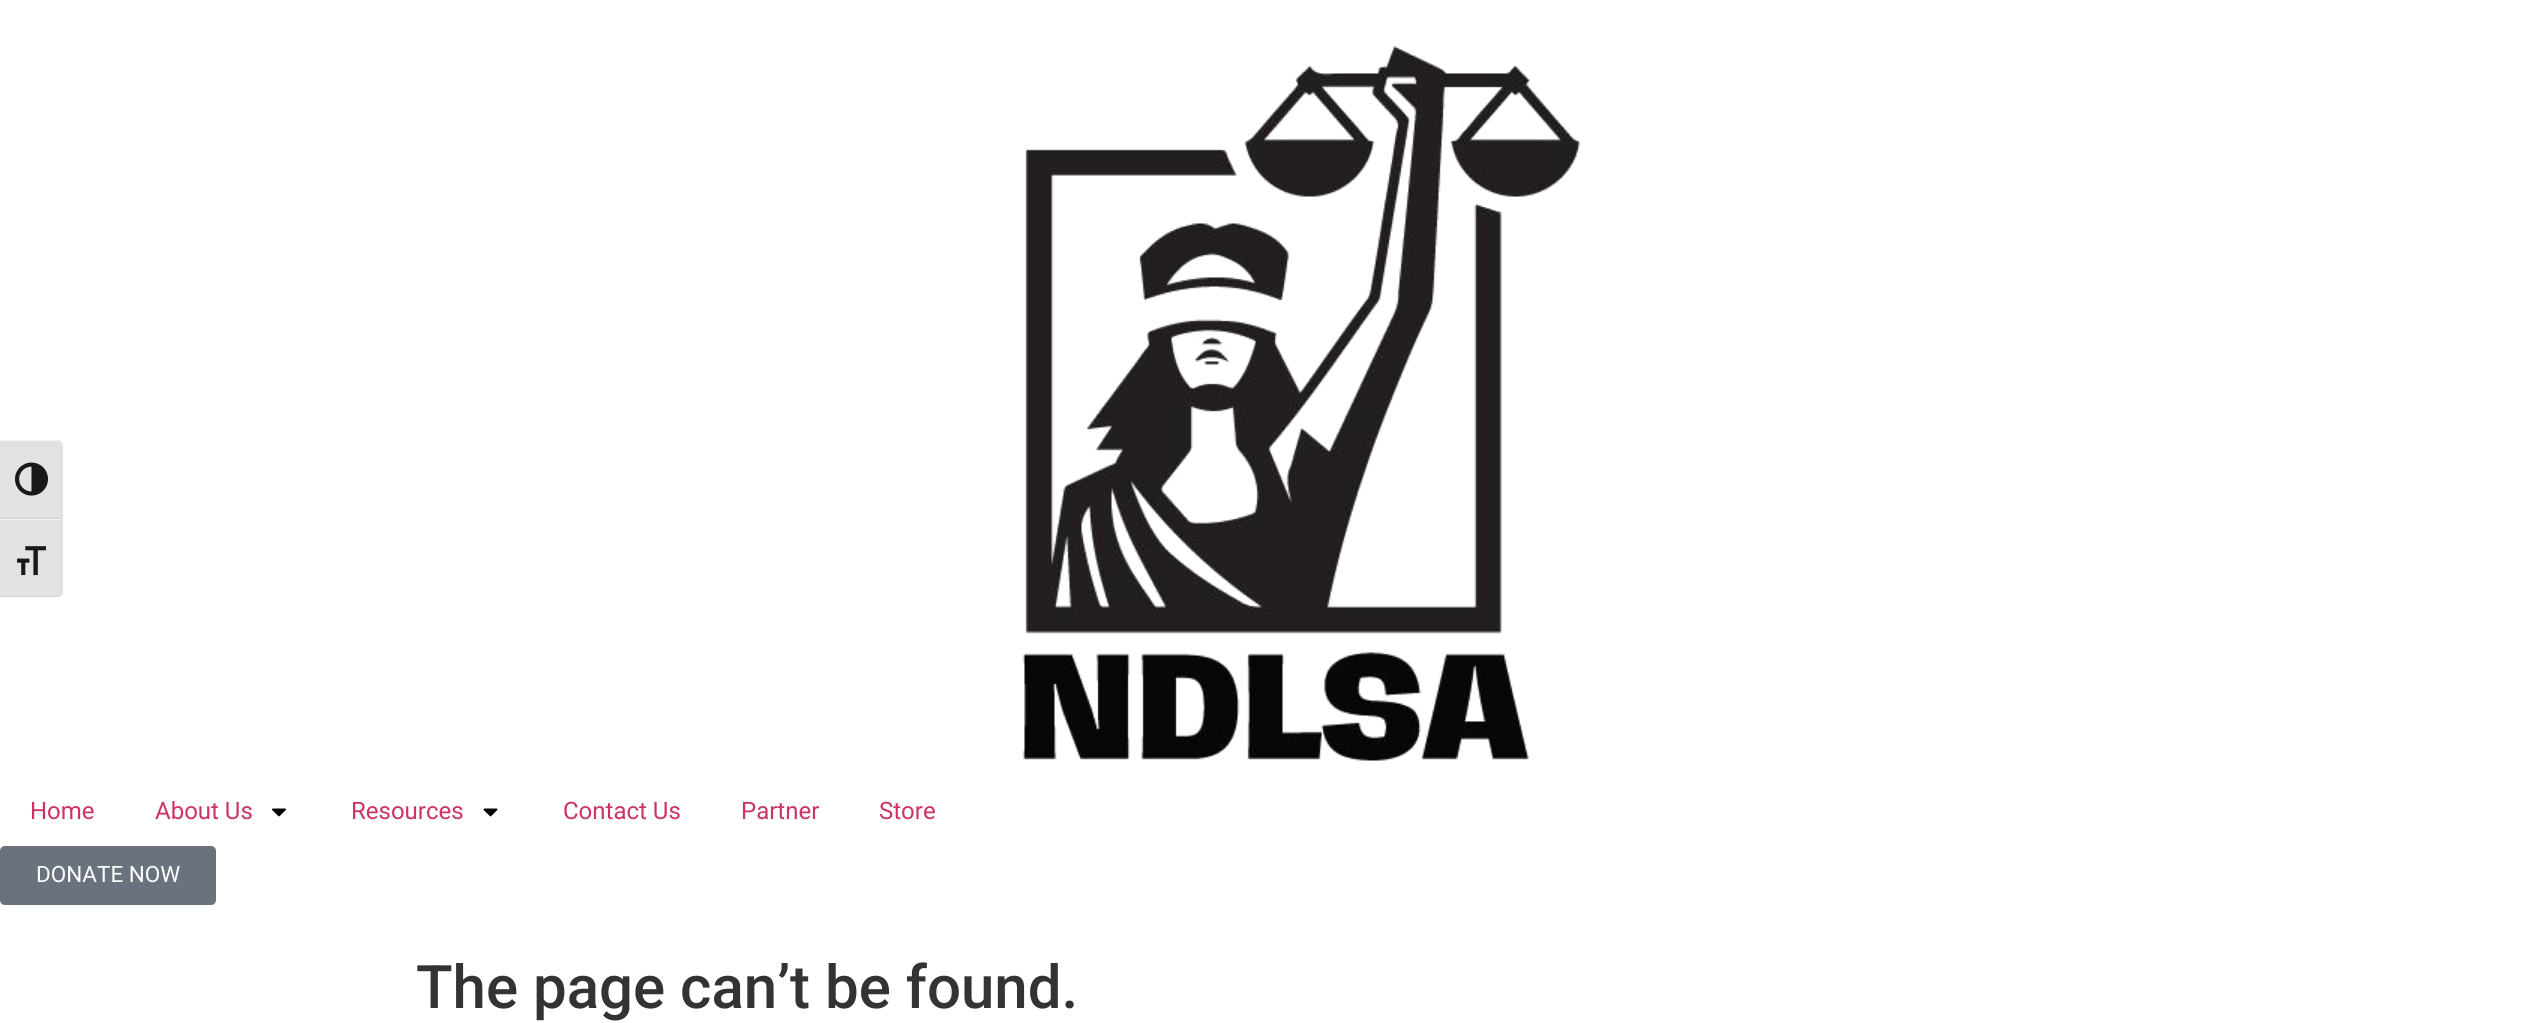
import math
import cairo


def use_color(cr, r, g, b):
  cr.set_source_rgb(r / 255, g / 255, b / 255)

def text(cr, x, y, s, family, size, color, bold=False, italic=False):
  cr.select_font_face(family, cairo.FONT_SLANT_ITALIC if italic else cairo.FONT_SLANT_NORMAL, cairo.FONT_WEIGHT_BOLD if bold else cairo.FONT_WEIGHT_NORMAL)
  cr.set_font_size(size)
  use_color(cr, *color)
  cr.move_to(x, y)
  cr.show_text(s)

def box(cr, x, y, w, h, *color):
  use_color(cr, *color)
  cr.rectangle(x, y, w, h)
  cr.fill()

def round_rect(cr, x, y, w, h, r):
  cr.new_sub_path()
  for i, (u, v) in enumerate([(x + w - r, y + h - r), (x + r, y + h - r), (x + r, y + r), (x + w - r, y + r)]):
    cr.arc(u, v, r, i * math.pi / 2, (i + 1) * math.pi / 2)
  cr.close_path()

def picture(cr, path, x, y, w, h):
  cr.save()
  cr.set_source_surface(cairo.ImageSurface.create_from_png(path), x, y)
  cr.rectangle(x, y, w, h)
  cr.fill()
  cr.restore()

def draw(cr):
  use_color(cr, 255, 255, 255)
  cr.paint()
  use_color(cr, 226, 226, 226)
  cr.new_path()
  cr.move_to(0, 440)
  cr.line_to(57, 440)
  cr.curve_to(60.5, 440, 63, 442.5, 63, 446)
  cr.line_to(63, 519)
  cr.line_to(0, 519)
  cr.close_path()
  cr.fill()
  use_color(cr, 245, 245, 245)
  cr.new_path()
  cr.move_to(0, 441)
  cr.line_to(57, 441)
  cr.curve_to(60, 441, 63, 443, 63, 446)
  cr.curve_to(63, 442, 60, 440, 57, 440)
  cr.line_to(0, 440)
  cr.close_path()
  cr.fill()
  box(cr, 0, 518, 63, 1, 210, 210, 210)
  picture(cr, "img_01.png", 15, 462, 33, 34)
  use_color(cr, 226, 226, 226)
  cr.new_path()
  cr.move_to(0, 519)
  cr.line_to(63, 519)
  cr.line_to(63, 591)
  cr.curve_to(63, 594.5, 60.5, 597, 57, 597)
  cr.line_to(0, 597)
  cr.close_path()
  cr.fill()
  box(cr, 0, 519, 63, 1, 245, 245, 245)
  use_color(cr, 210, 210, 210)
  cr.new_path()
  cr.move_to(0, 596)
  cr.line_to(0, 597)
  cr.line_to(57, 597)
  cr.curve_to(60, 597, 63, 594, 63, 591)
  cr.curve_to(63, 593, 60, 596, 57, 596)
  cr.close_path()
  cr.fill()
  picture(cr, "img_02.png", 17, 546, 29, 30)
  picture(cr, "img_03.png", 1022, 46, 558, 715)
  picture(cr, "img_04.png", 272, 808, 14, 9)
  picture(cr, "img_05.png", 483, 808, 15, 9)
  use_color(cr, 105, 114, 125)
  round_rect(cr, 0, 846, 216, 59, 5)
  cr.fill()
  text(cr, 30, 819, "Home", "Roboto", 24, (204, 51, 102))
  text(cr, 155, 819, "About Us", "Roboto", 24, (204, 51, 102))
  text(cr, 351, 819, "Resources", "Roboto", 24, (204, 51, 102))
  text(cr, 563, 819, "Contact Us", "Roboto", 24, (204, 51, 102))
  text(cr, 741, 819, "Partner", "Roboto", 24, (204, 51, 102))
  text(cr, 879, 819, "Store", "Roboto", 24, (204, 51, 102))
  text(cr, 36, 882, "DONATE NOW", "Roboto", 22.5, (255, 255, 255))
  text(cr, 416, 1008, "The page can’t be found.", "Roboto Medium", 60, (51, 51, 51))


surface = cairo.ImageSurface(cairo.FORMAT_RGB24, 2540, 1023)
cr = cairo.Context(surface)
options = cairo.FontOptions()
options.set_hint_metrics(cairo.HINT_METRICS_OFF)
options.set_hint_style(cairo.HINT_STYLE_NONE)
cr.set_font_options(options)
cr.set_miter_limit(4)
draw(cr)
surface.write_to_png("out.png")
